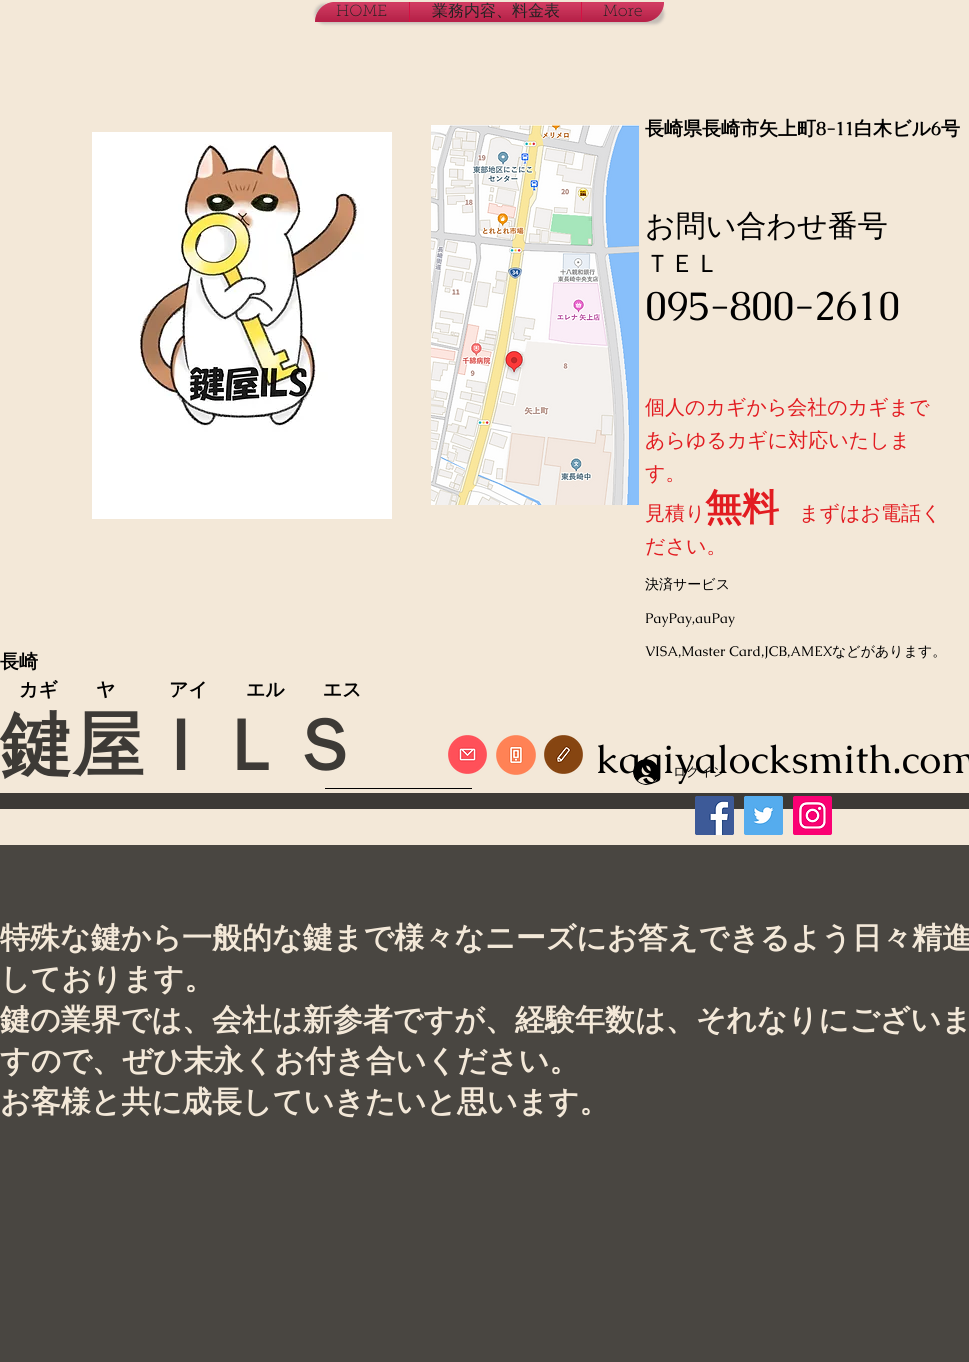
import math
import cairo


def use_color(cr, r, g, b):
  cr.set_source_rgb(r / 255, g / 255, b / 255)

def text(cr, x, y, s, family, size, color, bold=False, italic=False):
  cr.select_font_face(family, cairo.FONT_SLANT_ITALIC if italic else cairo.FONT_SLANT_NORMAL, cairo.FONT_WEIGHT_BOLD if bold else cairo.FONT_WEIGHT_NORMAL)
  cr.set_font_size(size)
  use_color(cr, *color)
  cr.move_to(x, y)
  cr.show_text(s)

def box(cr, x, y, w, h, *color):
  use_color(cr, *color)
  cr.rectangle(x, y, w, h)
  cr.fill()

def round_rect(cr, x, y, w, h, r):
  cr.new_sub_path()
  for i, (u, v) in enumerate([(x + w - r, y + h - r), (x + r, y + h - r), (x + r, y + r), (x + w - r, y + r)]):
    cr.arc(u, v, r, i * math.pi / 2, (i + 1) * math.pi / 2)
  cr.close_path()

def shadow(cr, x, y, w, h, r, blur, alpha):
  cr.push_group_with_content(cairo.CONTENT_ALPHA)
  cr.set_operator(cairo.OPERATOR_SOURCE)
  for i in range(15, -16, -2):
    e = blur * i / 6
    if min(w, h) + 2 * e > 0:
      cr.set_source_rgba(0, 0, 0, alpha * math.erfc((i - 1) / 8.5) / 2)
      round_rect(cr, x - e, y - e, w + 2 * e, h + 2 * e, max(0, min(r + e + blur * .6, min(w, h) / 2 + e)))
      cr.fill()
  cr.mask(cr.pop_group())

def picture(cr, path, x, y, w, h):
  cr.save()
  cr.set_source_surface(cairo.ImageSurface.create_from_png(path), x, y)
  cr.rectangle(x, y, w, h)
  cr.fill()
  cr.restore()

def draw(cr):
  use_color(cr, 243, 232, 216)
  cr.paint()
  use_color(cr, 162, 158, 158)
  shadow(cr, 315, 4, 349, 20, 20, 1.5, 0.6)
  picture(cr, "img_01.png", 315, 2, 349, 20)
  picture(cr, "img_02.png", 315, 2, 349, 20)
  use_color(cr, 214, 16, 67)
  cr.new_path()
  cr.move_to(335, 2)
  cr.line_to(409, 2)
  cr.line_to(409, 22)
  cr.line_to(315, 22)
  cr.curve_to(315, 11, 324, 2, 335, 2)
  cr.close_path()
  cr.fill()
  box(cr, 409, 2, 172, 20, 214, 16, 67)
  cr.new_path()
  cr.move_to(581, 2)
  cr.line_to(664, 2)
  cr.curve_to(664, 13, 655, 22, 644, 22)
  cr.line_to(581, 22)
  cr.close_path()
  cr.fill()
  picture(cr, "img_09.png", 92, 132, 300, 387)
  picture(cr, "img_10.png", 431, 125, 208, 380)
  picture(cr, "img_11.png", 448, 735, 39, 39)
  picture(cr, "img_12.png", 496, 735, 40, 40)
  picture(cr, "img_13.png", 544, 735, 39, 39)
  box(cr, 325, 788, 147, 1, 0, 0, 0)
  box(cr, 0, 793, 969, 16, 61, 58, 54)
  picture(cr, "img_15.png", 695, 796, 39, 39)
  picture(cr, "img_16.png", 744, 796, 39, 39)
  picture(cr, "img_17.png", 793, 796, 39, 39)
  box(cr, 0, 845, 969, 517, 73, 70, 65)
  text(cr, 336, 16, "HOME", "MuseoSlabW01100 Thin", 16, (0, 0, 0))
  picture(cr, "img_03.png", 315, 2, 94, 20)
  picture(cr, "img_04.png", 315, 2, 94, 20)
  text(cr, 432, 16, "業務内容、料金表", "WenQuanYi Zen Hei Medium", 16, (0, 0, 0))
  picture(cr, "img_05.png", 410, 2, 171, 20)
  picture(cr, "img_06.png", 410, 2, 171, 20)
  text(cr, 603, 16, "More", "MuseoSlabW01100 Thin", 16, (0, 0, 0))
  picture(cr, "img_07.png", 582, 2, 82, 20)
  picture(cr, "img_08.png", 582, 2, 82, 20)
  text(cr, 645, 135, "長崎県長崎市矢上町", "WenQuanYi Zen Hei", 19, (0, 0, 0), bold=True)
  text(cr, 816, 135, "8-11", "Caudex", 19, (0, 0, 0), bold=True)
  text(cr, 854, 135, "白木ビル", "WenQuanYi Zen Hei", 19, (0, 0, 0), bold=True)
  text(cr, 931, 135, "6", "Caudex", 19, (0, 0, 0), bold=True)
  text(cr, 941, 135, "号", "WenQuanYi Zen Hei", 19, (0, 0, 0), bold=True)
  text(cr, 645, 236, "お問い合わせ番号", "WenQuanYi Zen Hei Medium", 30, (0, 0, 0))
  text(cr, 645, 272, "ＴＥＬ", "WenQuanYi Zen Hei Medium", 25, (0, 0, 0))
  text(cr, 645, 320, "095-800-2610", "Caudex", 40, (0, 0, 0))
  text(cr, 645, 414, "個人のカギから会社のカギまで", "WenQuanYi Zen Hei Medium", 20, (226, 28, 33))
  text(cr, 645, 447, "あらゆるカギに対応いたしま", "WenQuanYi Zen Hei Medium", 20, (226, 28, 33))
  text(cr, 645, 480, "す。", "WenQuanYi Zen Hei Medium", 20, (226, 28, 33))
  text(cr, 645, 520, "見積り", "WenQuanYi Zen Hei Medium", 20, (226, 28, 33))
  text(cr, 705, 520, "無料", "WenQuanYi Zen Hei", 37, (226, 28, 33), bold=True)
  text(cr, 799, 520, "まずはお電話く", "WenQuanYi Zen Hei Medium", 20, (226, 28, 33))
  text(cr, 645, 553, "ださい。", "WenQuanYi Zen Hei Medium", 20, (226, 28, 33))
  text(cr, 645, 589, "決済サービス", "WenQuanYi Zen Hei Medium", 14, (0, 0, 0))
  text(cr, 645, 623, "PayPay,auPay", "Caudex", 14, (0, 0, 0))
  text(cr, 645, 656, "VISA,Master Card,JCB,AMEX", "Caudex", 14, (0, 0, 0))
  text(cr, 832, 656, "などがあります。", "WenQuanYi Zen Hei Medium", 14, (0, 0, 0))
  text(cr, 0, 668, "長崎", "WenQuanYi Zen Hei", 19, (0, 0, 0), bold=True)
  text(cr, 19, 696, "カギ　　ヤ", "WenQuanYi Zen Hei", 19, (0, 0, 0), bold=True)
  text(cr, 169, 696, "アイ　　エル　　エス", "WenQuanYi Zen Hei", 19, (0, 0, 0), bold=True)
  text(cr, 0, 770, "鍵屋ＩＬＳ", "WenQuanYi Zen Hei", 72, (61, 58, 54), bold=True)
  text(cr, 596, 773, "kagiyalocksmith.com", "Caudex", 40, (0, 0, 0))
  picture(cr, "img_14.png", 633, 759, 24, 26)
  text(cr, 673, 776, "ログイン", "WenQuanYi Zen Hei Medium", 13, (0, 0, 0))
  text(cr, 0, 948, "特殊な鍵から一般的な鍵まで様々なニーズにお答えできるよう日々精進", "WenQuanYi Zen Hei", 30, (243, 232, 216), bold=True)
  text(cr, 0, 989, "しております。", "WenQuanYi Zen Hei", 30, (243, 232, 216), bold=True)
  text(cr, 0, 1030, "鍵の業界では、会社は新参者ですが、経験年数は、それなりにございま", "WenQuanYi Zen Hei", 30, (243, 232, 216), bold=True)
  text(cr, 0, 1071, "すので、ぜひ末永くお付き合いください。", "WenQuanYi Zen Hei", 30, (243, 232, 216), bold=True)
  text(cr, 0, 1112, "お客様と共に成長していきたいと思います。", "WenQuanYi Zen Hei", 30, (243, 232, 216), bold=True)


surface = cairo.ImageSurface(cairo.FORMAT_RGB24, 969, 1362)
cr = cairo.Context(surface)
options = cairo.FontOptions()
options.set_hint_metrics(cairo.HINT_METRICS_OFF)
options.set_hint_style(cairo.HINT_STYLE_NONE)
cr.set_font_options(options)
cr.set_miter_limit(4)
draw(cr)
surface.write_to_png("out.png")
